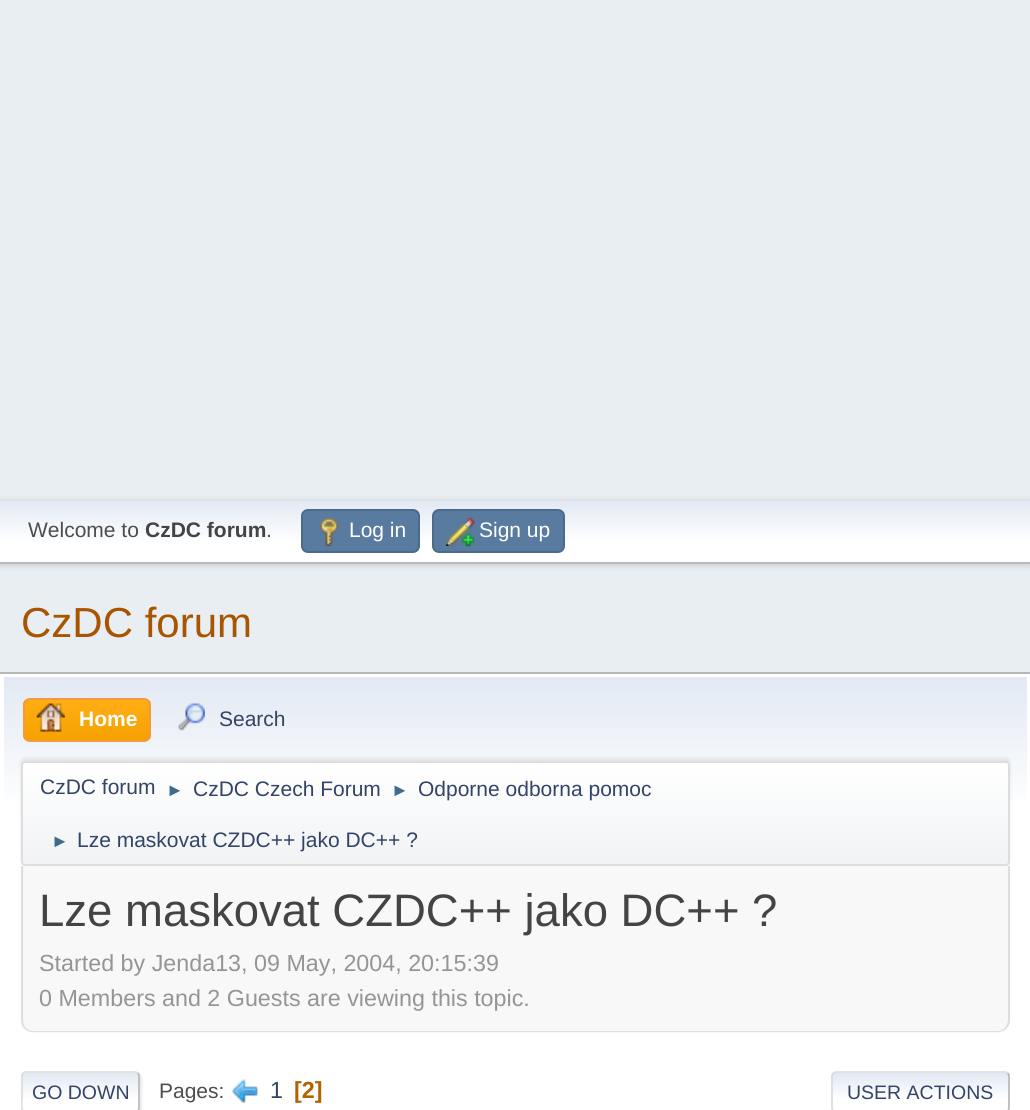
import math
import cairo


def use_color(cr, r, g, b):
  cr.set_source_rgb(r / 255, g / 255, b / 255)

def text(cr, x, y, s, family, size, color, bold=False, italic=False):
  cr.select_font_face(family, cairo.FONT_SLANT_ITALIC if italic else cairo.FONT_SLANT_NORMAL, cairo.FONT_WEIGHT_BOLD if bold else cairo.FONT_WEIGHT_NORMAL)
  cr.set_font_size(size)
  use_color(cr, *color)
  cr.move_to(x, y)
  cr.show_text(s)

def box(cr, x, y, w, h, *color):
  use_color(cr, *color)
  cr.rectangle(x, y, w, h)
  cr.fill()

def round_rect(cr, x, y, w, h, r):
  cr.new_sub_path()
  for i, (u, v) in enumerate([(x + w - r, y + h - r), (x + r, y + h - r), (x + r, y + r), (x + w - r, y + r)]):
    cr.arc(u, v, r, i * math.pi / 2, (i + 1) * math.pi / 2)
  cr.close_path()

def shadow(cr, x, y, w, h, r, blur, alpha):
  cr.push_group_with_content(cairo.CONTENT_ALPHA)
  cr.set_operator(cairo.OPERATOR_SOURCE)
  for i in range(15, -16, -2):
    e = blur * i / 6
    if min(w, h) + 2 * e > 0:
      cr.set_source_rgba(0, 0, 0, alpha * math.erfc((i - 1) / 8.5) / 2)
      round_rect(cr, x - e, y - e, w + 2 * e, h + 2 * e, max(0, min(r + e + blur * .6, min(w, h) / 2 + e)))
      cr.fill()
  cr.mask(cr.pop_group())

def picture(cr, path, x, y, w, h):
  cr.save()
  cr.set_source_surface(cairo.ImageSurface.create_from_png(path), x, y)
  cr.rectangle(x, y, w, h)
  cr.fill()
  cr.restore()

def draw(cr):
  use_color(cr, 233, 238, 242)
  cr.paint()
  use_color(cr, 0, 0, 0)
  shadow(cr, 0, 502, 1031, 63, 0, 3.5, 0.16)
  gradient = cairo.LinearGradient(515, 500, 515, 562)
  gradient.add_color_stop_rgba(0, 0.886, 0.914, 0.953, 1)
  gradient.add_color_stop_rgba(0.7, 1, 1, 1, 1)
  cr.set_source(gradient)
  cr.rectangle(0, 501, 1030, 61)
  cr.fill()
  box(cr, 0, 562, 1030, 2, 187, 187, 187)
  use_color(cr, 89, 123, 159)
  round_rect(cr, 302, 510, 117, 42, 6)
  cr.fill_preserve()
  use_color(cr, 74, 107, 140)
  cr.stroke()
  picture(cr, "img_01.png", 319, 518, 20, 28)
  use_color(cr, 89, 123, 159)
  round_rect(cr, 433, 510, 131, 42, 6)
  cr.fill_preserve()
  use_color(cr, 74, 107, 140)
  cr.stroke()
  picture(cr, "img_02.png", 446, 518, 29, 28)
  box(cr, 0, 674, 1030, 436, 255, 255, 255)
  box(cr, 0, 672, 1030, 2, 184, 184, 184)
  gradient = cairo.LinearGradient(515, 677, 515, 870)
  gradient.add_color_stop_rgba(0, 0.886, 0.914, 0.953, 1)
  gradient.add_color_stop_rgba(0.7, 1, 1, 1, 1)
  cr.set_source(gradient)
  cr.rectangle(4, 677, 1023, 123)
  cr.fill()
  cr.save()
  round_rect(cr, 23, 698, 128, 44, 7)
  cr.clip()
  gradient = cairo.LinearGradient(87, 700, 87, 740)
  gradient.add_color_stop_rgba(0, 1, 0.682, 0.078, 1)
  gradient.add_color_stop_rgba(1, 0.961, 0.631, 0, 1)
  cr.set_source(gradient)
  cr.rectangle(23, 700, 128, 40)
  cr.fill()
  cr.restore()
  round_rect(cr, 24, 699, 126, 42, 6)
  use_color(cr, 244, 154, 58)
  cr.stroke()
  picture(cr, "img_03.png", 36, 703, 29, 29)
  picture(cr, "img_04.png", 178, 703, 27, 28)
  use_color(cr, 0, 0, 0)
  shadow(cr, 21, 758, 989, 105, 4, 2, 0.08)
  cr.save()
  round_rect(cr, 21, 761, 989, 105, 4)
  cr.clip()
  gradient = cairo.LinearGradient(515, 763, 515, 865)
  gradient.add_color_stop_rgba(0, 1, 1, 1, 1)
  gradient.add_color_stop_rgba(0.95, 0.945, 0.953, 0.961, 1)
  cr.set_source(gradient)
  cr.rectangle(21, 763, 989, 102)
  cr.fill()
  cr.restore()
  round_rect(cr, 22, 762, 987, 103, 3)
  use_color(cr, 221, 221, 221)
  cr.stroke()
  use_color(cr, 248, 248, 248)
  cr.new_path()
  cr.move_to(21, 866)
  cr.line_to(1010, 866)
  cr.line_to(1010, 1021)
  cr.curve_to(1010, 1027.5, 1004.5, 1033, 998, 1033)
  cr.line_to(33, 1033)
  cr.curve_to(26.5, 1033, 21, 1027.5, 21, 1021)
  cr.close_path()
  cr.fill()
  use_color(cr, 221, 221, 221)
  cr.set_fill_rule(cairo.FILL_RULE_EVEN_ODD)
  cr.new_path()
  cr.move_to(21, 866)
  cr.line_to(1010, 866)
  cr.line_to(1010, 1020)
  cr.curve_to(1010, 1027, 1004, 1032, 998, 1032)
  cr.line_to(33, 1032)
  cr.curve_to(26, 1032, 21, 1027, 21, 1020)
  cr.close_path()
  cr.move_to(23, 866)
  cr.line_to(1008, 866)
  cr.line_to(1008, 1020)
  cr.curve_to(1008, 1026, 1003, 1031, 998, 1031)
  cr.line_to(33, 1031)
  cr.curve_to(27, 1031, 23, 1026, 23, 1020)
  cr.close_path()
  cr.fill()
  use_color(cr, 221, 221, 221)
  shadow(cr, 23, 1073, 119, 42, 5, 1, 0.57)
  use_color(cr, 255, 255, 255)
  round_rect(cr, 21, 1071, 119, 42, 5)
  cr.fill()
  cr.save()
  cr.set_fill_rule(cairo.FILL_RULE_WINDING)
  round_rect(cr, 21, 1071, 119, 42, 5)
  cr.clip()
  gradient = cairo.LinearGradient(81, 1073, 81, 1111)
  gradient.add_color_stop_rgba(0, 0.886, 0.914, 0.953, 1)
  gradient.add_color_stop_rgba(0.7, 1, 1, 1, 1)
  cr.set_source(gradient)
  cr.rectangle(21, 1073, 119, 37)
  cr.fill()
  cr.restore()
  cr.new_path()
  cr.move_to(138, 1073)
  cr.curve_to(138.5, 1074, 139, 1075, 139, 1076)
  cr.line_to(139, 1108)
  cr.curve_to(139, 1109, 138.5, 1110, 138, 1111)
  use_color(cr, 187, 187, 187)
  cr.set_line_width(1.8)
  cr.stroke()
  cr.save()
  cr.set_fill_rule(cairo.FILL_RULE_WINDING)
  cr.rectangle(21, 1059, 989, 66)
  cr.clip()
  cr.new_path()
  cr.move_to(23, 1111)
  cr.curve_to(20.5, 1108, 22, 1100.5, 22, 1097)
  cr.line_to(22, 1081.5)
  cr.curve_to(22, 1078, 21, 1072, 26, 1072)
  cr.line_to(135, 1072)
  cr.line_to(138, 1073)
  use_color(cr, 221, 221, 221)
  cr.stroke()
  cr.restore()
  picture(cr, "img_05.png", 232, 1079, 26, 24)
  cr.save()
  cr.set_fill_rule(cairo.FILL_RULE_WINDING)
  cr.rectangle(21, 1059, 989, 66)
  cr.clip()
  use_color(cr, 221, 221, 221)
  shadow(cr, 833, 1073, 179, 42, 5, 1, 0.57)
  cr.restore()
  use_color(cr, 255, 255, 255)
  round_rect(cr, 831, 1071, 179, 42, 5)
  cr.fill()
  cr.save()
  cr.set_fill_rule(cairo.FILL_RULE_WINDING)
  round_rect(cr, 831, 1071, 179, 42, 5)
  cr.clip()
  gradient = cairo.LinearGradient(921, 1073, 921, 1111)
  gradient.add_color_stop_rgba(0, 0.886, 0.914, 0.953, 1)
  gradient.add_color_stop_rgba(0.7, 1, 1, 1, 1)
  cr.set_source(gradient)
  cr.rectangle(831, 1073, 179, 37)
  cr.fill()
  cr.restore()
  cr.new_path()
  cr.move_to(1007.5, 1073)
  cr.curve_to(1008.5, 1074, 1009, 1075, 1009, 1076)
  cr.line_to(1009, 1108)
  cr.curve_to(1009, 1109, 1008.5, 1110, 1007.5, 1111)
  use_color(cr, 187, 187, 187)
  cr.stroke()
  cr.new_path()
  cr.move_to(833.5, 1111)
  cr.curve_to(832.5, 1110, 832, 1109, 832, 1108)
  cr.line_to(832, 1076)
  cr.curve_to(832, 1075, 832.5, 1074, 833.5, 1073)
  cr.curve_to(834, 1072.5, 835.5, 1072, 836.5, 1072)
  cr.line_to(1004.5, 1072)
  cr.curve_to(1005.5, 1072, 1007, 1072.5, 1007.5, 1073)
  use_color(cr, 221, 221, 221)
  cr.stroke()
  text(cr, 28, 537, "Welcome to", "Liberation Sans", 21, (77, 77, 77))
  text(cr, 145, 537, "CzDC forum", "Liberation Sans", 21, (68, 68, 68), bold=True)
  text(cr, 266, 537, ".", "Liberation Sans", 21, (77, 77, 77))
  text(cr, 349, 537, "Log in", "Liberation Sans", 21, (255, 255, 255))
  text(cr, 479, 537, "Sign up", "Liberation Sans", 21, (255, 255, 255))
  text(cr, 21, 637, "CzDC forum", "Liberation Sans", 42, (168, 84, 0))
  text(cr, 79, 726, "Home", "Liberation Sans", 21, (255, 255, 255), bold=True)
  text(cr, 219, 726, "Search", "Liberation Sans", 21, (51, 68, 102))
  text(cr, 40, 794, "CzDC forum", "Liberation Sans", 21, (51, 68, 102))
  text(cr, 166, 796, "►", "Liberation Sans", 18, (63, 107, 140))
  text(cr, 193, 796, "CzDC Czech Forum", "Liberation Sans", 21, (51, 68, 102))
  text(cr, 391, 796, "►", "Liberation Sans", 18, (63, 107, 140))
  text(cr, 418, 796, "Odporne odborna pomoc", "Liberation Sans", 21, (51, 68, 102))
  text(cr, 51, 847, "►", "Liberation Sans", 18, (63, 107, 140))
  text(cr, 77, 847, "Lze maskovat CZDC++ jako DC++ ?", "Liberation Sans", 21, (51, 68, 102))
  text(cr, 39, 926, "Lze maskovat CZDC++ jako DC++ ?", "Liberation Sans", 45.5, (68, 68, 68))
  text(cr, 39, 971, "Started by Jenda13, 09 May, 2004, 20:15:39", "Liberation Sans", 23.3, (149, 149, 149))
  text(cr, 39, 1006, "0 Members and 2 Guests are viewing this topic.", "Liberation Sans", 23.3, (149, 149, 149))
  text(cr, 32, 1099, "GO DOWN", "Liberation Sans", 19.5, (51, 68, 102))
  text(cr, 159, 1098, "Pages:", "Liberation Sans", 21, (77, 77, 77))
  text(cr, 270, 1098, "1", "Liberation Sans", 23.3, (51, 68, 102))
  text(cr, 294, 1098, "[2]", "Liberation Sans", 23.3, (180, 97, 0), bold=True)
  text(cr, 847, 1099, "USER ACTIONS", "Liberation Sans", 19.5, (51, 68, 102))


surface = cairo.ImageSurface(cairo.FORMAT_RGB24, 1030, 1110)
cr = cairo.Context(surface)
options = cairo.FontOptions()
options.set_hint_metrics(cairo.HINT_METRICS_OFF)
options.set_hint_style(cairo.HINT_STYLE_NONE)
cr.set_font_options(options)
cr.set_miter_limit(4)
draw(cr)
surface.write_to_png("out.png")
